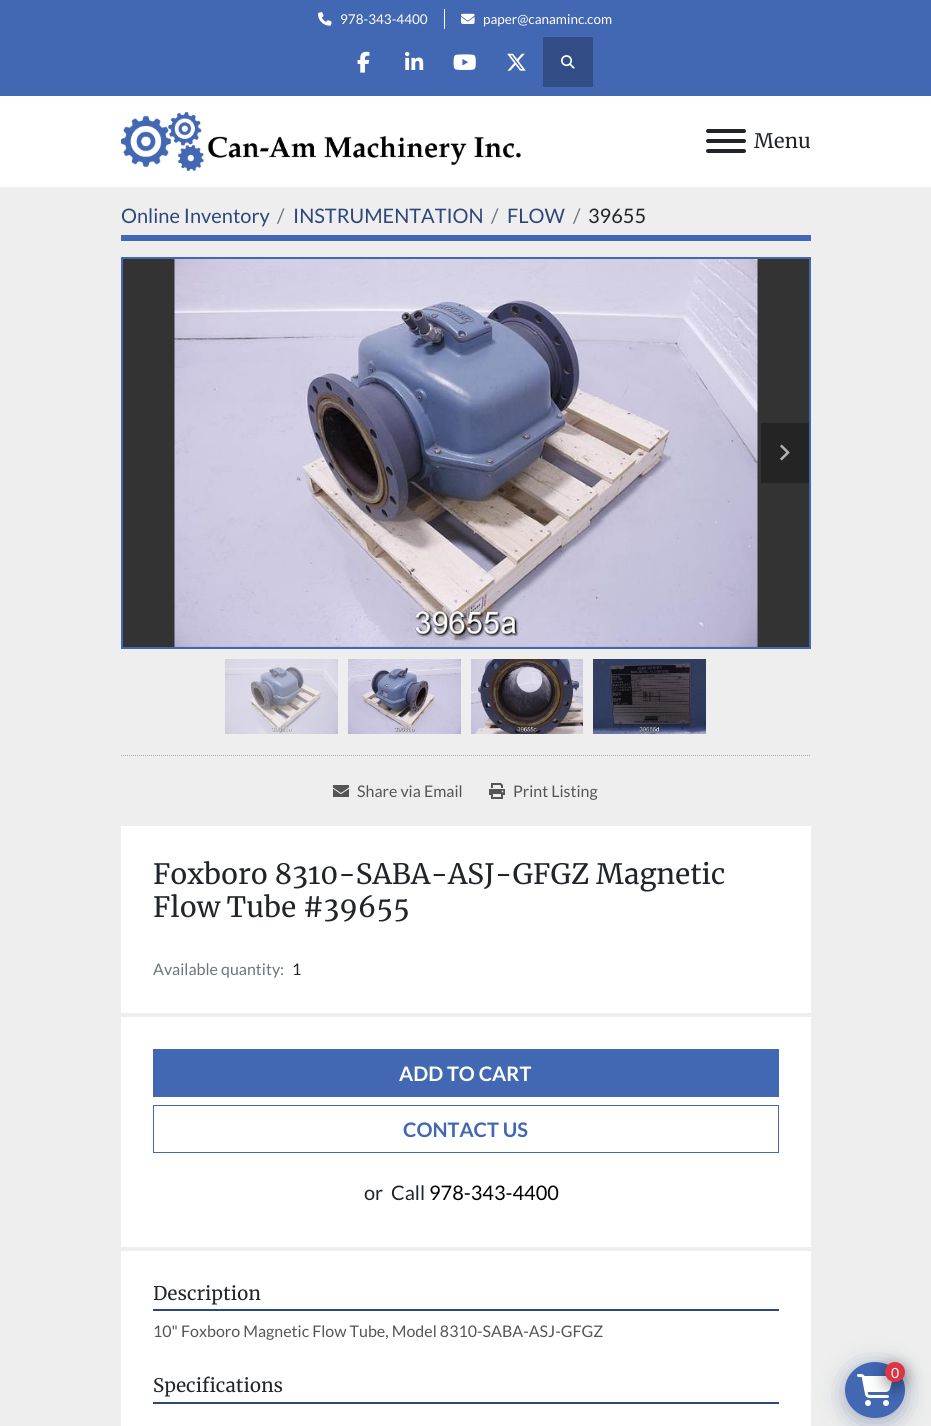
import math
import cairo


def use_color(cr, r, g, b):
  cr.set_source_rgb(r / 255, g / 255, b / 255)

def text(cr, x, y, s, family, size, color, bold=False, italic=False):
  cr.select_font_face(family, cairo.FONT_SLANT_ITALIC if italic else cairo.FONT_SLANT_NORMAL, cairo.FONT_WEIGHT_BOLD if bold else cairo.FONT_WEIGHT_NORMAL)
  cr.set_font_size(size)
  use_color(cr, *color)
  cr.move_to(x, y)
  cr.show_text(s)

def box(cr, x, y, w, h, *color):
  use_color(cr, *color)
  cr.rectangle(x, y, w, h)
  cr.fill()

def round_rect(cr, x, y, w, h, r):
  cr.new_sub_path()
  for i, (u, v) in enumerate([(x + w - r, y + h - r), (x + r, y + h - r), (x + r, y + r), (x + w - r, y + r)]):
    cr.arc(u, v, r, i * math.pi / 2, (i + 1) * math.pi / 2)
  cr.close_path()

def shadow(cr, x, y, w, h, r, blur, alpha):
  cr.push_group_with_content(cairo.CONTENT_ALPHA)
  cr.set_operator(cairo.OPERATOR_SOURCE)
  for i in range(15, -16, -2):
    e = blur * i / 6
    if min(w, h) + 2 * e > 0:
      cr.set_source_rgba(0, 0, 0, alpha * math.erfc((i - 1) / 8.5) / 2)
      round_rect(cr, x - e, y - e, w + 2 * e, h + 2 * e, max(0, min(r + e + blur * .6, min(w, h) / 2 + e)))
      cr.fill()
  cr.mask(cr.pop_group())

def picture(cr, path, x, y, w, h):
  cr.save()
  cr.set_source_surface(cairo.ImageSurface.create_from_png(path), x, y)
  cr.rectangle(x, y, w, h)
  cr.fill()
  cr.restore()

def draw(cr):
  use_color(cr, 238, 238, 238)
  cr.paint()
  box(cr, 0, 0, 931, 96, 66, 103, 179)
  box(cr, 444, 9, 1, 20, 255, 255, 255)
  picture(cr, "img_01.png", 318, 12, 14, 14)
  picture(cr, "img_02.png", 461, 13, 14, 11)
  picture(cr, "img_03.png", 357, 51, 13, 22)
  picture(cr, "img_04.png", 405, 51, 19, 19)
  picture(cr, "img_05.png", 453, 54, 23, 16)
  picture(cr, "img_06.png", 507, 53, 19, 18)
  box(cr, 543, 37, 50, 50, 50, 77, 134)
  picture(cr, "img_07.png", 561, 55, 14, 14)
  box(cr, 0, 96, 931, 91, 255, 255, 255)
  picture(cr, "img_08.png", 121, 112, 400, 59)
  use_color(cr, 33, 37, 41)
  round_rect(cr, 706, 139, 40, 4, 2)
  cr.fill()
  round_rect(cr, 706, 129, 40, 4, 2)
  cr.fill()
  round_rect(cr, 706, 149, 40, 4, 2)
  cr.fill()
  box(cr, 121, 235, 690, 6, 66, 103, 179)
  use_color(cr, 51, 51, 51)
  cr.rectangle(122, 258, 688, 390)
  cr.fill_preserve()
  use_color(cr, 66, 103, 179)
  cr.stroke()
  picture(cr, "img_09.png", 174, 259, 584, 388)
  box(cr, 761, 423, 48, 60, 36, 36, 36)
  picture(cr, "img_10.png", 780, 444, 10, 17)
  picture(cr, "img_11.png", 225, 659, 113, 75)
  picture(cr, "img_12.png", 348, 659, 113, 75)
  picture(cr, "img_13.png", 471, 659, 112, 75)
  picture(cr, "img_14.png", 593, 659, 113, 75)
  cr.new_path()
  cr.move_to(121, 755.5)
  cr.line_to(811, 755.5)
  use_color(cr, 170, 170, 170)
  cr.set_line_width(1)
  cr.set_dash([1, 1])
  cr.stroke()
  picture(cr, "img_15.png", 333, 785, 16, 12)
  picture(cr, "img_16.png", 489, 783, 16, 16)
  box(cr, 121, 826, 690, 600, 255, 255, 255)
  box(cr, 121, 1013, 690, 4, 238, 238, 238)
  box(cr, 121, 1247, 690, 4, 238, 238, 238)
  box(cr, 153, 1049, 626, 48, 66, 103, 179)
  cr.rectangle(153.5, 1105.5, 625, 47)
  cr.set_dash([])
  cr.stroke()
  box(cr, 153, 1309, 626, 2, 45, 71, 123)
  box(cr, 153, 1402, 626, 2, 45, 71, 123)
  use_color(cr, 45, 71, 123)
  shadow(cr, 845, 1366, 60, 56, 28, 12, 0.4)
  use_color(cr, 66, 103, 179)
  cr.new_path()
  cr.move_to(875, 1362)
  cr.curve_to(891.5, 1362, 905, 1374.5, 905, 1390)
  cr.curve_to(905, 1405.5, 891.5, 1418, 875, 1418)
  cr.curve_to(858.5, 1418, 845, 1405.5, 845, 1390)
  cr.curve_to(845, 1374.5, 858.5, 1362, 875, 1362)
  cr.close_path()
  cr.fill()
  picture(cr, "img_17.png", 857, 1374, 36, 32)
  use_color(cr, 0, 0, 0)
  shadow(cr, 885, 1366, 20, 20, 10, 8, 0.4)
  use_color(cr, 220, 53, 69)
  cr.arc(895, 1372, 10, 0, 2 * math.pi)
  cr.fill()
  text(cr, 340, 24, "978-343-4400", "Lato", 13.5, (255, 255, 255))
  text(cr, 483, 24, "paper@canaminc.com", "Lato", 13.5, (255, 255, 255))
  text(cr, 754, 148, "Menu", "Merriweather", 20, (33, 37, 41))
  text(cr, 121, 223, "Online Inventory", "Lato", 20, (45, 71, 123))
  text(cr, 277, 223, "/", "Lato", 20, (108, 117, 125))
  text(cr, 293, 223, "INSTRUMENTATION", "Lato", 20, (45, 71, 123))
  text(cr, 491, 223, "/", "Lato", 20, (108, 117, 125))
  text(cr, 507, 223, "FLOW", "Lato", 20, (45, 71, 123))
  text(cr, 573, 223, "/", "Lato", 20, (108, 117, 125))
  text(cr, 588, 223, "39655", "Lato", 20, (33, 37, 41))
  text(cr, 357, 797, "Share via Email", "Lato", 16, (85, 85, 85))
  text(cr, 513, 797, "Print Listing", "Lato", 16, (85, 85, 85))
  text(cr, 153, 884, "Foxboro 8310-SABA-ASJ-GFGZ Magnetic", "Merriweather", 28, (33, 37, 41))
  text(cr, 153, 917, "Flow Tube #39655", "Merriweather", 28, (33, 37, 41))
  text(cr, 153, 975, "Available quantity:", "Lato", 16, (108, 117, 125))
  text(cr, 292, 975, "1", "Lato", 16, (33, 37, 41))
  text(cr, 399, 1081, "ADD TO CART", "Lato", 20, (255, 255, 255), bold=True)
  text(cr, 403, 1137, "CONTACT US", "Lato", 20, (66, 103, 179), bold=True)
  text(cr, 364, 1200, "or", "Lato", 20, (33, 37, 41))
  text(cr, 391, 1200, "Call", "Lato", 20, (33, 37, 41))
  text(cr, 429, 1200, "978-343-4400", "Lato", 20, (0, 0, 0))
  text(cr, 153, 1300, "Description", "Merriweather", 18.75, (33, 37, 41))
  text(cr, 153, 1337, "10\" Foxboro Magnetic Flow Tube, Model 8310-SABA-ASJ-GFGZ", "Lato", 16, (85, 85, 85))
  text(cr, 153, 1392, "Specifications", "Merriweather", 18.75, (33, 37, 41))
  text(cr, 891, 1378, "0", "Lato", 14, (255, 255, 255))


surface = cairo.ImageSurface(cairo.FORMAT_RGB24, 931, 1426)
cr = cairo.Context(surface)
options = cairo.FontOptions()
options.set_hint_metrics(cairo.HINT_METRICS_OFF)
options.set_hint_style(cairo.HINT_STYLE_NONE)
cr.set_font_options(options)
cr.set_miter_limit(4)
draw(cr)
surface.write_to_png("out.png")
